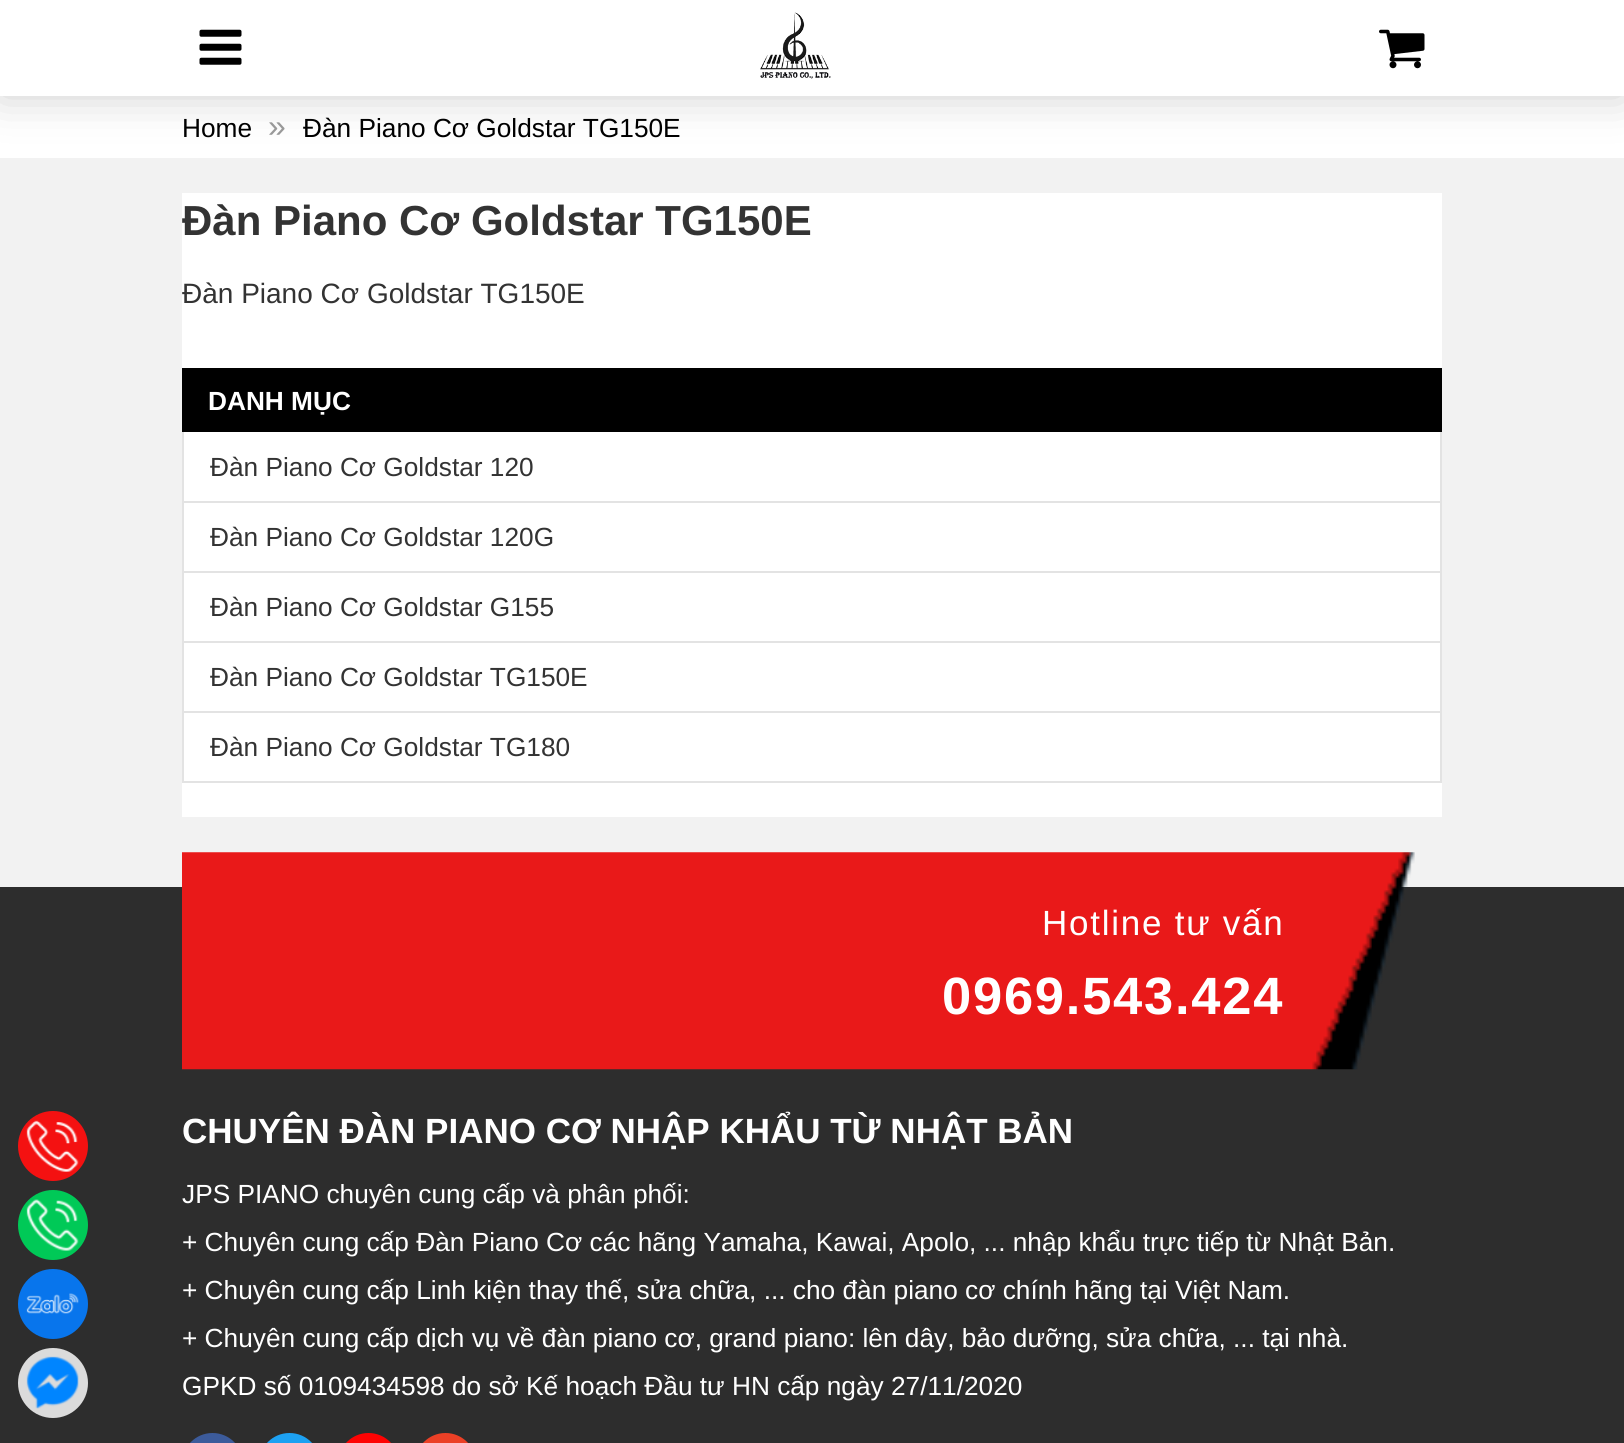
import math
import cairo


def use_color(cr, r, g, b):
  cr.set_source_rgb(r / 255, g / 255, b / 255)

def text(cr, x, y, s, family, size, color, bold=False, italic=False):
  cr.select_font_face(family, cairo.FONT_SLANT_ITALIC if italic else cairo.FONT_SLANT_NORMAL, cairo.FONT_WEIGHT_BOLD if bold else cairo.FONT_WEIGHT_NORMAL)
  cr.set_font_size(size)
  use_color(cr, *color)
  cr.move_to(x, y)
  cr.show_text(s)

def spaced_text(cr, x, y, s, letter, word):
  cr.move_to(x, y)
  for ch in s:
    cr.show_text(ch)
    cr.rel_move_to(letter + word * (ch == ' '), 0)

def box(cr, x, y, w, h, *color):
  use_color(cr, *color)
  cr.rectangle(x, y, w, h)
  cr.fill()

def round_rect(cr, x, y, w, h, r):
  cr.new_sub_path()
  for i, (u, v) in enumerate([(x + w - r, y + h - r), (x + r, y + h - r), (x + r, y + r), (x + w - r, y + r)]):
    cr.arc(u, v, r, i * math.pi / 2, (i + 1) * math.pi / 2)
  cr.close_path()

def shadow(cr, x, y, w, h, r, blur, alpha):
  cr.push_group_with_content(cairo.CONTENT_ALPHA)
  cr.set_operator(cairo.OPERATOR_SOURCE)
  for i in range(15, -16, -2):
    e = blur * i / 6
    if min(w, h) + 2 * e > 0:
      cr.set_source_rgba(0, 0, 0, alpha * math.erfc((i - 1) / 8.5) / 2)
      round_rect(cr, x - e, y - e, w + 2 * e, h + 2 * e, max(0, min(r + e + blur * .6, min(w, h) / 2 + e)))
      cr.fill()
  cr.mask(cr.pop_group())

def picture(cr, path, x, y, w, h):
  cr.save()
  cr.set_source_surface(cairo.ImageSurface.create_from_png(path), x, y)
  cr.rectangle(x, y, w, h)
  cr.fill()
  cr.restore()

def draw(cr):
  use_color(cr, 242, 242, 242)
  cr.paint()
  box(cr, 0, 96, 1624, 62, 255, 255, 255)
  use_color(cr, 0, 0, 0)
  shadow(cr, 0, 0, 1624, 96, 0, 22, 0.2)
  box(cr, 0, 0, 1624, 96, 255, 255, 255)
  picture(cr, "img_01.png", 199, 29, 43, 36)
  picture(cr, "img_02.png", 760, 12, 71, 67)
  picture(cr, "img_03.png", 1379, 29, 46, 40)
  box(cr, 182, 193, 1260, 624, 255, 255, 255)
  box(cr, 182, 368, 1260, 64, 0, 0, 0)
  box(cr, 1440, 432, 2, 350, 227, 227, 227)
  box(cr, 182, 781, 1260, 2, 227, 227, 227)
  box(cr, 182, 432, 2, 350, 227, 227, 227)
  box(cr, 184, 501, 1256, 2, 227, 227, 227)
  box(cr, 184, 571, 1256, 2, 227, 227, 227)
  box(cr, 184, 641, 1256, 2, 227, 227, 227)
  box(cr, 184, 711, 1256, 2, 227, 227, 227)
  box(cr, 0, 887, 1624, 556, 45, 45, 45)
  use_color(cr, 244, 17, 17)
  cr.arc(53, 1146, 35, 0, 2 * math.pi)
  cr.fill()
  picture(cr, "img_04.png", 26, 1120, 53, 52)
  use_color(cr, 0, 201, 87)
  cr.arc(53, 1225, 35, 0, 2 * math.pi)
  cr.fill()
  picture(cr, "img_05.png", 26, 1199, 53, 52)
  use_color(cr, 8, 117, 236)
  cr.arc(53, 1304, 35, 0, 2 * math.pi)
  cr.fill()
  picture(cr, "img_06.png", 26, 1293, 53, 21)
  use_color(cr, 219, 219, 219)
  cr.arc(53, 1383, 35, 0, 2 * math.pi)
  cr.fill()
  picture(cr, "img_07.png", 26, 1356, 53, 53)
  picture(cr, "img_08.png", 182, 852, 1233, 218)
  use_color(cr, 60, 91, 155)
  round_rect(cr, 182, 1433, 61, 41, 30.5)
  cr.fill()
  use_color(cr, 29, 161, 242)
  round_rect(cr, 259, 1433, 61, 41, 30.5)
  cr.fill()
  use_color(cr, 254, 3, 3)
  round_rect(cr, 338, 1433, 61, 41, 30.5)
  cr.fill()
  use_color(cr, 235, 64, 38)
  round_rect(cr, 415, 1433, 61, 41, 30.5)
  cr.fill()
  text(cr, 182, 137, "Home", "Liberation Sans", 26.25, (0, 0, 0))
  text(cr, 268, 137, "»", "Liberation Sans", 32, (153, 153, 153))
  text(cr, 303, 137, "Đàn Piano Cơ Goldstar TG150E", "Liberation Sans", 26.25, (0, 0, 0))
  text(cr, 182, 235, "Đàn Piano Cơ Goldstar TG150E", "Liberation Sans", 42, (51, 51, 51), bold=True)
  text(cr, 182, 303, "Đàn Piano Cơ Goldstar TG150E", "Liberation Sans", 28, (51, 51, 51))
  text(cr, 208, 410, "DANH MỤC", "Liberation Sans", 26.25, (255, 255, 255), bold=True)
  text(cr, 210, 476, "Đàn Piano Cơ Goldstar 120", "Liberation Sans", 26.25, (51, 51, 51))
  text(cr, 210, 546, "Đàn Piano Cơ Goldstar 120G", "Liberation Sans", 26.25, (51, 51, 51))
  text(cr, 210, 616, "Đàn Piano Cơ Goldstar G155", "Liberation Sans", 26.25, (51, 51, 51))
  text(cr, 210, 686, "Đàn Piano Cơ Goldstar TG150E", "Liberation Sans", 26.25, (51, 51, 51))
  text(cr, 210, 756, "Đàn Piano Cơ Goldstar TG180", "Liberation Sans", 26.25, (51, 51, 51))
  cr.set_font_size(35)
  use_color(cr, 255, 255, 255)
  spaced_text(cr, 1042, 935, "Hotline tư vấn", 1.75, 0)
  cr.select_font_face("Liberation Sans", cairo.FONT_SLANT_NORMAL, cairo.FONT_WEIGHT_BOLD)
  cr.set_font_size(52.5)
  spaced_text(cr, 942, 1014, "0969.543.424", 1.75, 0)
  text(cr, 182, 1143, "CHUYÊN ĐÀN PIANO CƠ NHẬP KHẨU TỪ NHẬT BẢN", "Liberation Sans", 35, (255, 255, 255), bold=True)
  text(cr, 182, 1203, "JPS PIANO chuyên cung cấp và phân phối:", "Liberation Sans", 26.25, (255, 255, 255))
  text(cr, 182, 1251, "+ Chuyên cung cấp Đàn Piano Cơ các hãng Yamaha, Kawai, Apolo, ... nhập khẩu trực tiếp từ Nhật Bản.", "Liberation Sans", 26.25, (255, 255, 255))
  text(cr, 182, 1299, "+ Chuyên cung cấp Linh kiện thay thế, sửa chữa, ... cho đàn piano cơ chính hãng tại Việt Nam.", "Liberation Sans", 26.25, (255, 255, 255))
  text(cr, 182, 1347, "+ Chuyên cung cấp dịch vụ về đàn piano cơ, grand piano: lên dây, bảo dưỡng, sửa chữa, ... tại nhà.", "Liberation Sans", 26.25, (255, 255, 255))
  text(cr, 182, 1395, "GPKD số 0109434598 do sở Kế hoạch Đầu tư HN cấp ngày 27/11/2020", "Liberation Sans", 26.25, (255, 255, 255))


surface = cairo.ImageSurface(cairo.FORMAT_RGB24, 1624, 1443)
cr = cairo.Context(surface)
options = cairo.FontOptions()
options.set_hint_metrics(cairo.HINT_METRICS_OFF)
options.set_hint_style(cairo.HINT_STYLE_NONE)
cr.set_font_options(options)
cr.set_miter_limit(4)
draw(cr)
surface.write_to_png("out.png")
